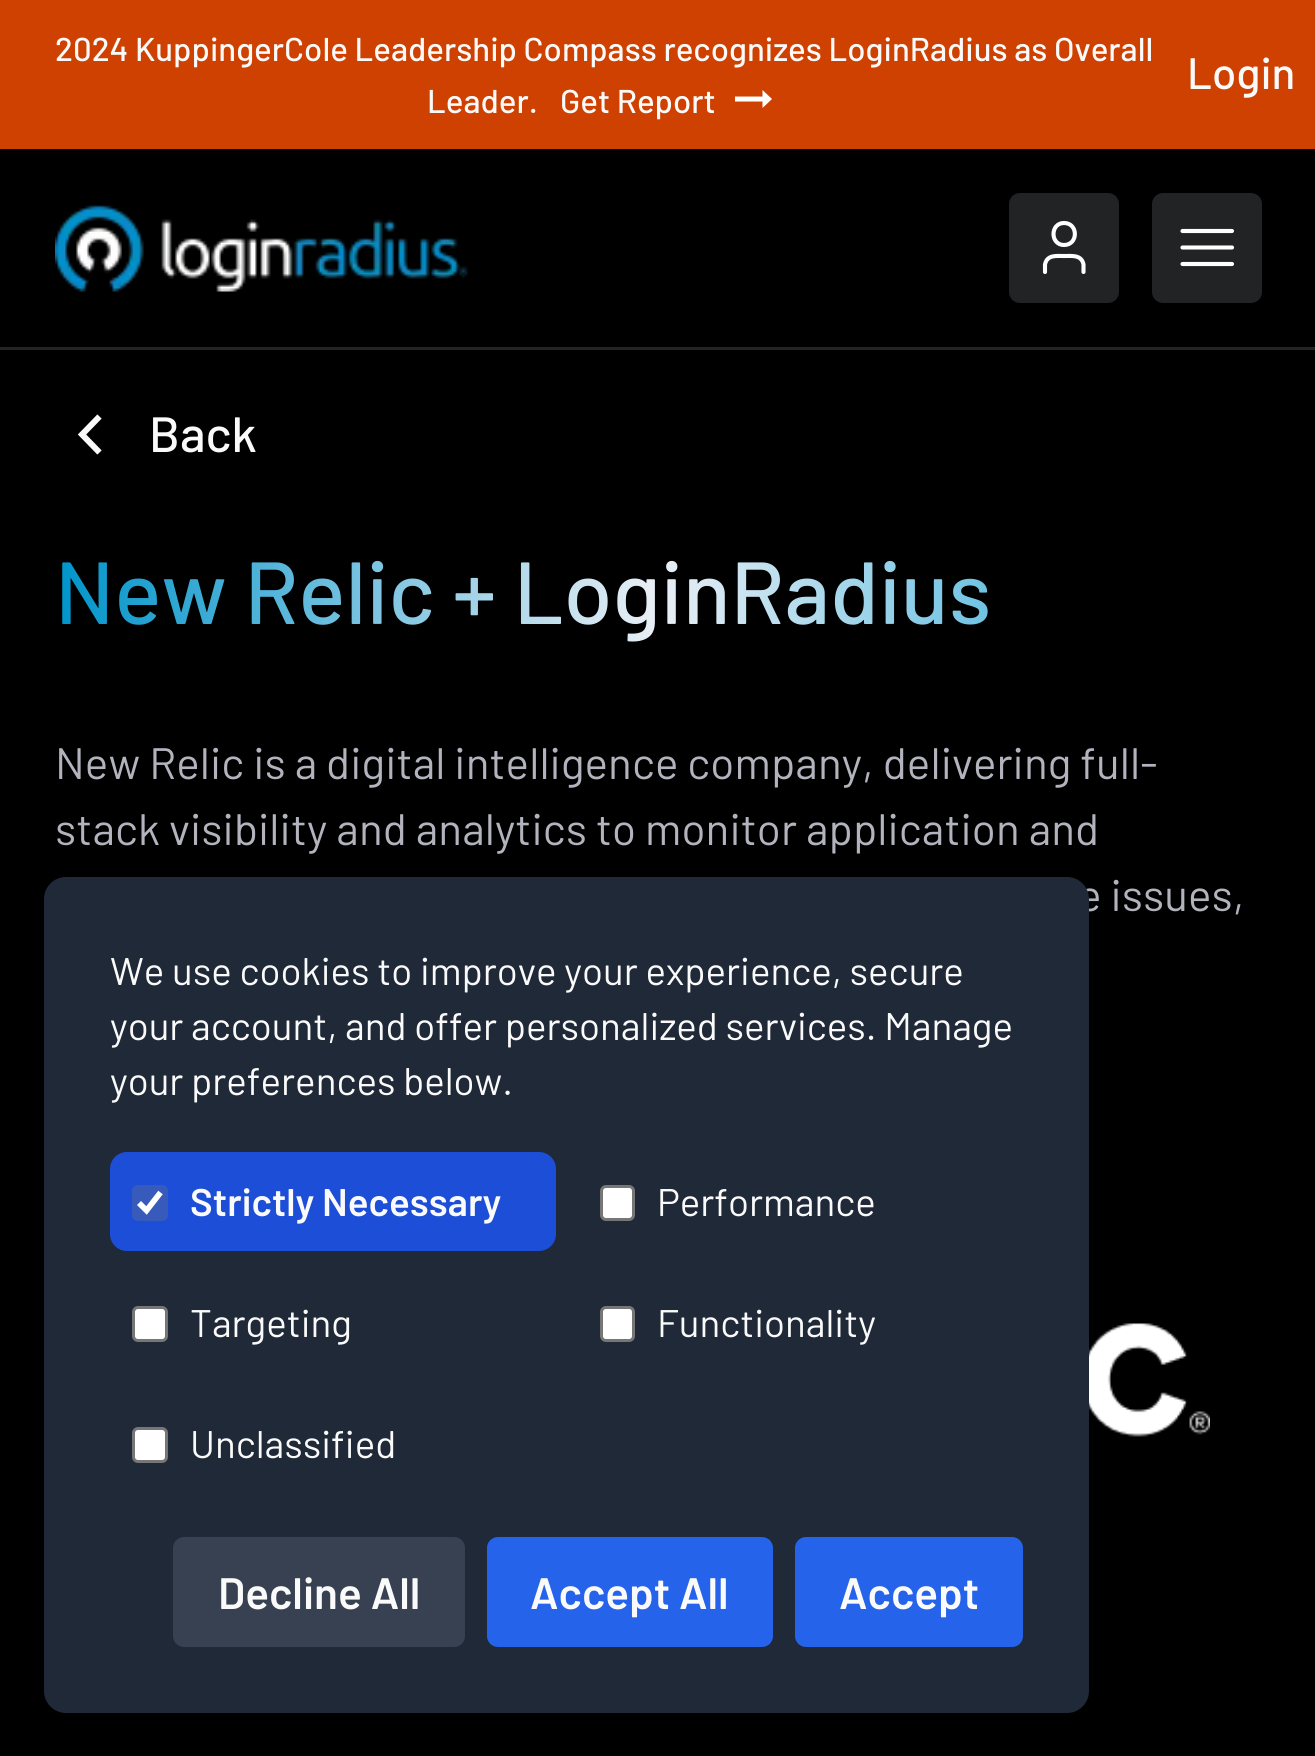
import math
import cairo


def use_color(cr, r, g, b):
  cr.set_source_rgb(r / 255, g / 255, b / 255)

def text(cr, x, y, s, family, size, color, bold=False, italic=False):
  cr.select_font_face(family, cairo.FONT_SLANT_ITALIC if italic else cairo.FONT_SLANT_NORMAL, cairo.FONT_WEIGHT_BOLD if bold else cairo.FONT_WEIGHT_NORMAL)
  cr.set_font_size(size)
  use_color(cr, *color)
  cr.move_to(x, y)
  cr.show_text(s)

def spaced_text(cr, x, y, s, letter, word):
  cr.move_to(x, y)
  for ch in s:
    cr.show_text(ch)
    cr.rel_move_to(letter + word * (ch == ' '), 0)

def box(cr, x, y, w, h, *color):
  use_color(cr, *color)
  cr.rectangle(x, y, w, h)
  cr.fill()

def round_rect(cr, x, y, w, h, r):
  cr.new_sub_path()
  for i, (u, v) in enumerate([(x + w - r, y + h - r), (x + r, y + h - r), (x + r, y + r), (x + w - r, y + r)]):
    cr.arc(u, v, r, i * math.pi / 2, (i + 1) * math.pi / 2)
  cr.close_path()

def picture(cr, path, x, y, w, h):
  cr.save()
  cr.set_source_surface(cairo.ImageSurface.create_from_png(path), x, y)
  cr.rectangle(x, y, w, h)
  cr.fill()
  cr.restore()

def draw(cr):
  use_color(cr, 0, 0, 0)
  cr.paint()
  box(cr, 0, 0, 1315, 149, 207, 65, 0)
  use_color(cr, 255, 255, 255)
  cr.new_path()
  cr.move_to(762.5, 96.5)
  cr.line_to(735, 96.5)
  cr.line_to(735, 101.5)
  cr.line_to(762.5, 101.5)
  cr.line_to(762.5, 108)
  cr.line_to(772, 99)
  cr.line_to(762.5, 90)
  cr.close_path()
  cr.fill()
  box(cr, 0, 347, 1315, 3, 36, 36, 36)
  picture(cr, "img_01.png", 55, 205, 413, 87)
  use_color(cr, 34, 35, 37)
  round_rect(cr, 1009, 193, 110, 110, 11)
  cr.fill()
  cr.new_path()
  cr.move_to(1083.5, 272)
  cr.line_to(1083.5, 264.5)
  cr.curve_to(1081.5, 254.5, 1072, 256, 1064, 256)
  cr.curve_to(1056.5, 256, 1047, 254.5, 1045, 264.5)
  cr.line_to(1045, 272)
  cr.move_to(1064, 245)
  cr.curve_to(1078.5, 245, 1078.5, 223, 1064, 223)
  cr.curve_to(1050, 223, 1050, 245, 1064, 245)
  cr.close_path()
  use_color(cr, 255, 255, 255)
  cr.set_line_width(4.1)
  cr.set_line_cap(cairo.LINE_CAP_ROUND)
  cr.set_line_join(cairo.LINE_JOIN_ROUND)
  cr.stroke()
  use_color(cr, 34, 35, 37)
  round_rect(cr, 1152, 193, 110, 110, 11)
  cr.fill()
  cr.new_path()
  cr.move_to(1182.5, 231)
  cr.line_to(1232, 231)
  cr.move_to(1182.5, 247.5)
  cr.line_to(1232, 247.5)
  cr.move_to(1182.5, 264)
  cr.line_to(1232, 264)
  use_color(cr, 255, 255, 255)
  cr.stroke()
  cr.new_path()
  cr.move_to(99.5, 416.5)
  cr.line_to(82, 434.5)
  cr.line_to(99.5, 452.5)
  use_color(cr, 250, 250, 250)
  cr.set_line_width(6)
  cr.set_line_cap(cairo.LINE_CAP_BUTT)
  cr.set_line_join(cairo.LINE_JOIN_MITER)
  cr.stroke()
  picture(cr, "img_02.png", 1089, 1323, 121, 114)
  text(cr, 55, 61, "2024 KuppingerCole Leadership Compass recognizes LoginRadius as Overall", "Barlow Medium", 33, (250, 250, 250))
  text(cr, 427, 113, "Leader.", "Barlow Medium", 33, (250, 250, 250))
  text(cr, 560, 113, "Get Report", "Barlow Medium", 33, (250, 250, 250))
  text(cr, 1187, 89, "Login", "Barlow Medium", 44, (250, 250, 250))
  text(cr, 149, 452, "Back", "Barlow Medium", 49.5, (250, 250, 250))
  cr.set_font_size(88)
  gradient = cairo.LinearGradient(55, 589, 1262, 589)
  gradient.add_color_stop_rgba(0, 0, 0.58, 0.792, 1)
  gradient.add_color_stop_rgba(0.5, 0.918, 0.937, 0.961, 1)
  gradient.add_color_stop_rgba(1, 0.039, 0.62, 0.831, 1)
  cr.set_source(gradient)
  cr.move_to(55, 624)
  cr.show_text("New Relic + LoginRadius")
  cr.select_font_face("Barlow")
  cr.set_font_size(44)
  use_color(cr, 178, 179, 189)
  spaced_text(cr, 55, 779, "New Relic is a digital intelligence company, delivering full-", 0.1, 0)
  spaced_text(cr, 55, 845, "stack visibility and analytics to monitor application and", 0.1, 0)
  spaced_text(cr, 1078, 911, "e issues,", 0.1, 0)
  use_color(cr, 31, 41, 55)
  round_rect(cr, 44, 877, 1045, 836, 22)
  cr.fill()
  text(cr, 110, 985, "We use cookies to improve your experience, secure", "Barlow", 38.5, (250, 250, 250))
  text(cr, 110, 1040, "your account, and offer personalized services. Manage", "Barlow", 38.5, (250, 250, 250))
  text(cr, 110, 1095, "your preferences below.", "Barlow", 38.5, (250, 250, 250))
  use_color(cr, 29, 78, 216)
  round_rect(cr, 110, 1152, 446, 99, 17)
  cr.fill()
  use_color(cr, 56, 90, 187)
  round_rect(cr, 132, 1185, 36, 36, 6)
  cr.fill()
  cr.new_path()
  cr.move_to(139, 1203)
  cr.line_to(146.5, 1210.5)
  cr.line_to(160.5, 1192.5)
  use_color(cr, 255, 255, 255)
  cr.set_line_width(5.7)
  cr.stroke()
  text(cr, 190, 1216, "Strictly Necessary", "Barlow SemiBold", 38.5, (250, 250, 250))
  use_color(cr, 255, 255, 255)
  round_rect(cr, 601.5, 1186.5, 32, 33, 4.5)
  cr.fill_preserve()
  use_color(cr, 118, 118, 118)
  cr.set_line_width(3)
  cr.stroke()
  text(cr, 657, 1216, "Performance", "Barlow", 38.5, (250, 250, 250))
  use_color(cr, 255, 255, 255)
  round_rect(cr, 133.5, 1307.5, 33, 33, 4.5)
  cr.fill_preserve()
  use_color(cr, 118, 118, 118)
  cr.stroke()
  text(cr, 190, 1337, "Targeting", "Barlow", 38.5, (250, 250, 250))
  use_color(cr, 255, 255, 255)
  round_rect(cr, 601.5, 1307.5, 32, 33, 4.5)
  cr.fill_preserve()
  use_color(cr, 118, 118, 118)
  cr.stroke()
  text(cr, 657, 1337, "Functionality", "Barlow", 38.5, (250, 250, 250))
  use_color(cr, 255, 255, 255)
  round_rect(cr, 133.5, 1428.5, 33, 33, 4.5)
  cr.fill_preserve()
  use_color(cr, 118, 118, 118)
  cr.stroke()
  text(cr, 190, 1458, "Unclassified", "Barlow", 38.5, (250, 250, 250))
  use_color(cr, 55, 65, 81)
  round_rect(cr, 173, 1537, 292, 110, 11)
  cr.fill()
  text(cr, 218, 1609, "Decline All", "Barlow SemiBold", 44, (250, 250, 250))
  use_color(cr, 37, 99, 235)
  round_rect(cr, 487, 1537, 286, 110, 11)
  cr.fill()
  text(cr, 530, 1609, "Accept All", "Barlow SemiBold", 44, (250, 250, 250))
  use_color(cr, 37, 99, 235)
  round_rect(cr, 795, 1537, 228, 110, 11)
  cr.fill()
  text(cr, 839, 1609, "Accept", "Barlow SemiBold", 44, (250, 250, 250))


surface = cairo.ImageSurface(cairo.FORMAT_RGB24, 1315, 1756)
cr = cairo.Context(surface)
options = cairo.FontOptions()
options.set_hint_metrics(cairo.HINT_METRICS_OFF)
options.set_hint_style(cairo.HINT_STYLE_NONE)
cr.set_font_options(options)
cr.set_miter_limit(4)
draw(cr)
surface.write_to_png("out.png")
